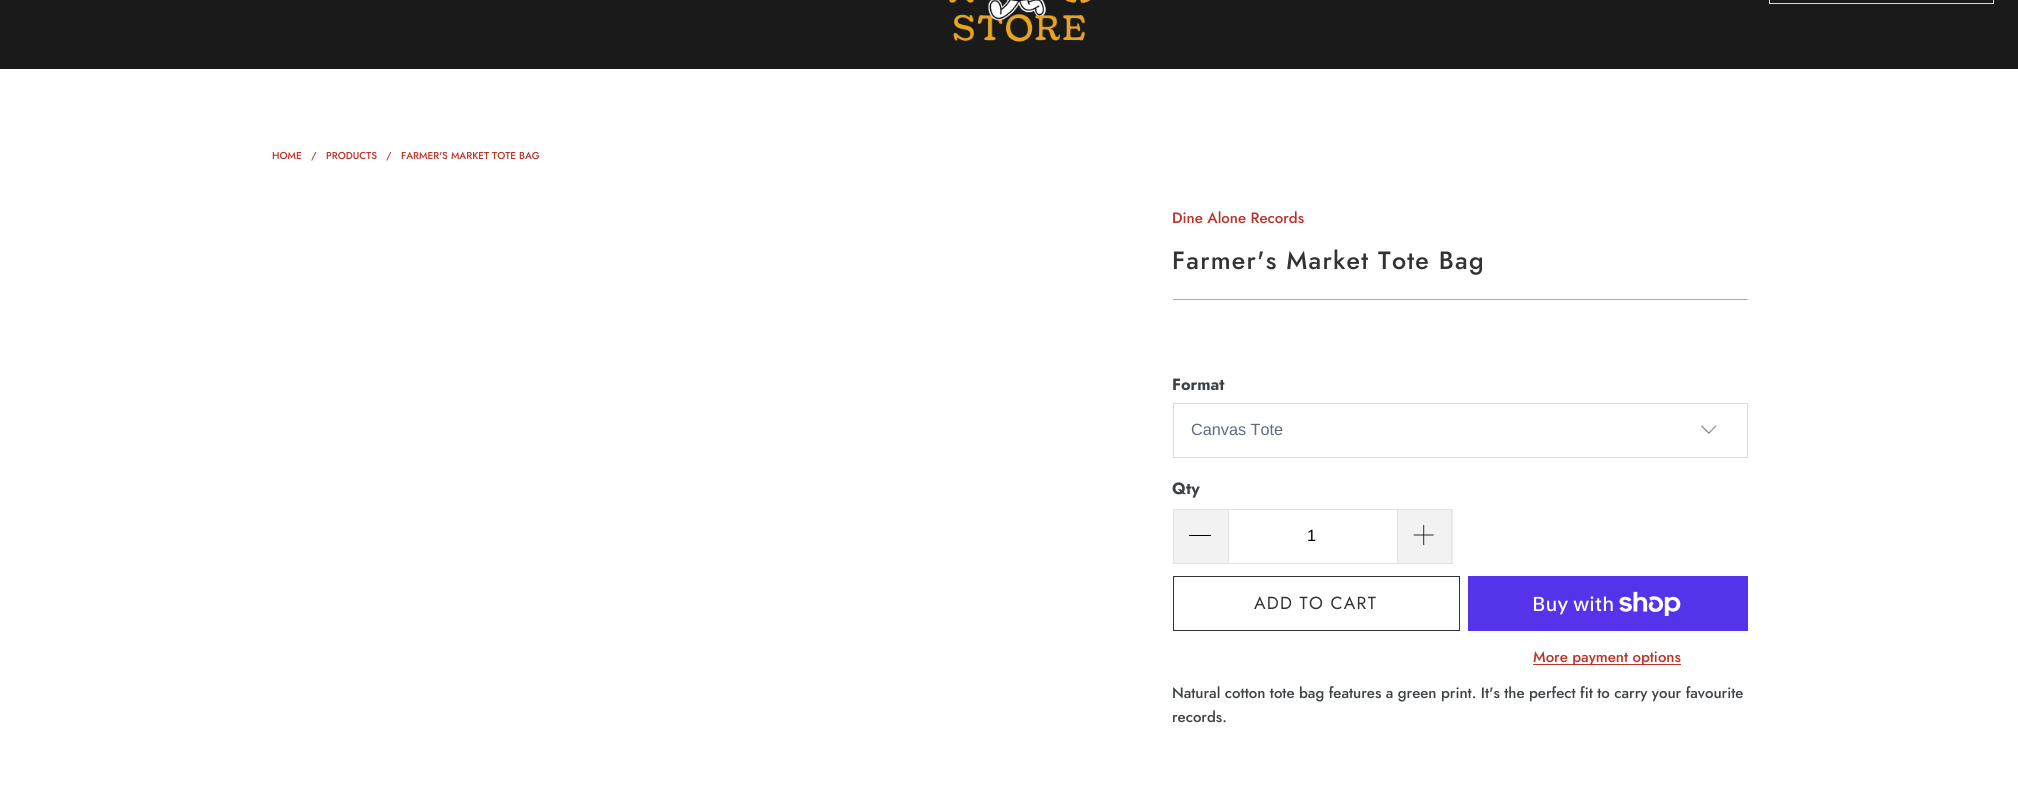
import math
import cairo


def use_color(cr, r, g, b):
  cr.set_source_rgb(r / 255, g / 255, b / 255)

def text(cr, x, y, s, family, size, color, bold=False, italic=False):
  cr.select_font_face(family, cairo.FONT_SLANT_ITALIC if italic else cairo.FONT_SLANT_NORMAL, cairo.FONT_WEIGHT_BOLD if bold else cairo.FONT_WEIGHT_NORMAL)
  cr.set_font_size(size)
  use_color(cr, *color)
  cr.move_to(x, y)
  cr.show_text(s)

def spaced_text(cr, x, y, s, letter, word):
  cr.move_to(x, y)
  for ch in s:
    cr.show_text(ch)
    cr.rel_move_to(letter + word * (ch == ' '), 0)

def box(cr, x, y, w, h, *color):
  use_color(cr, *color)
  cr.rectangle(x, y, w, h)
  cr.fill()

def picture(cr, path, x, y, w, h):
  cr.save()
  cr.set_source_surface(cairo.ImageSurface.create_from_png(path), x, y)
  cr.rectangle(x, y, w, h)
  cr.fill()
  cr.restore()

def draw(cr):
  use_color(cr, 255, 255, 255)
  cr.paint()
  box(cr, 0, 0, 2018, 69, 26, 26, 26)
  picture(cr, "img_01.png", 949, 0, 142, 42)
  cr.rectangle(1769.5, -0.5, 224, 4)
  use_color(cr, 217, 217, 217)
  cr.set_line_width(1)
  cr.stroke()
  box(cr, 1173, 299, 575, 1, 170, 170, 170)
  picture(cr, "img_02.png", 1701, 425, 16, 9)
  cr.rectangle(1173.5, 403.5, 574, 54)
  use_color(cr, 217, 219, 220)
  cr.stroke()
  box(cr, 1174, 510, 54, 53, 242, 242, 242)
  box(cr, 1173, 509, 55, 1, 226, 226, 226)
  box(cr, 1173, 563, 55, 1, 226, 226, 226)
  box(cr, 1173, 509, 1, 55, 226, 226, 226)
  box(cr, 1189, 535, 22, 1, 0, 0, 0)
  cr.rectangle(1228.5, 509.5, 169, 54)
  use_color(cr, 226, 226, 226)
  cr.stroke()
  box(cr, 1398, 510, 55, 53, 242, 242, 242)
  box(cr, 1398, 509, 55, 1, 226, 226, 226)
  box(cr, 1451, 509, 1, 55, 226, 226, 226)
  box(cr, 1398, 563, 55, 1, 226, 226, 226)
  picture(cr, "img_03.png", 1413, 525, 21, 20)
  cr.rectangle(1173.5, 576.5, 286, 54)
  use_color(cr, 51, 51, 51)
  cr.stroke()
  box(cr, 1468, 576, 280, 55, 84, 51, 235)
  picture(cr, "img_04.png", 1619, 591, 62, 25)
  box(cr, 1533, 664, 148, 1, 187, 52, 40)
  text(cr, 272, 159, "HOME", "Jost Medium", 10, (187, 52, 40))
  text(cr, 311, 159, "/", "Jost Medium", 10, (187, 52, 40))
  text(cr, 326, 159, "PRODUCTS", "Jost Medium", 10, (187, 52, 40))
  text(cr, 386, 159, "/", "Jost Medium", 10, (187, 52, 40))
  text(cr, 401, 159, "FARMER'S MARKET TOTE BAG", "Jost Medium", 10, (187, 52, 40))
  text(cr, 1172, 223, "Dine Alone Records", "Jost Medium", 15, (187, 52, 40))
  cr.set_font_size(25)
  use_color(cr, 51, 51, 51)
  spaced_text(cr, 1172, 269, "Farmer's Market Tote Bag", 1.25, 0)
  text(cr, 1172, 390, "Format", "Jost", 16.25, (61, 66, 70), bold=True)
  text(cr, 1191, 435, "Canvas Tote", "Liberation Sans", 16.25, (95, 106, 125))
  text(cr, 1172, 494, "Qty", "Jost", 16.25, (61, 66, 70), bold=True)
  text(cr, 1307, 541, "1", "Liberation Sans", 16.25, (0, 0, 0))
  cr.select_font_face("Jost")
  cr.set_font_size(17.5)
  use_color(cr, 51, 51, 51)
  spaced_text(cr, 1254, 609, "ADD TO CART", 1.25, 0)
  text(cr, 1532, 611, "Buy with", "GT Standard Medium", 20, (255, 255, 255))
  text(cr, 1533, 662, "More payment options", "Jost Medium", 15, (187, 52, 40))
  text(cr, 1172, 698, "Natural cotton tote bag features a green print. It's the perfect fit to carry your favourite", "Jost Medium", 15, (61, 66, 70))
  text(cr, 1172, 722, "records.", "Jost Medium", 15, (61, 66, 70))


surface = cairo.ImageSurface(cairo.FORMAT_RGB24, 2018, 811)
cr = cairo.Context(surface)
options = cairo.FontOptions()
options.set_hint_metrics(cairo.HINT_METRICS_OFF)
options.set_hint_style(cairo.HINT_STYLE_NONE)
cr.set_font_options(options)
cr.set_miter_limit(4)
draw(cr)
surface.write_to_png("out.png")
